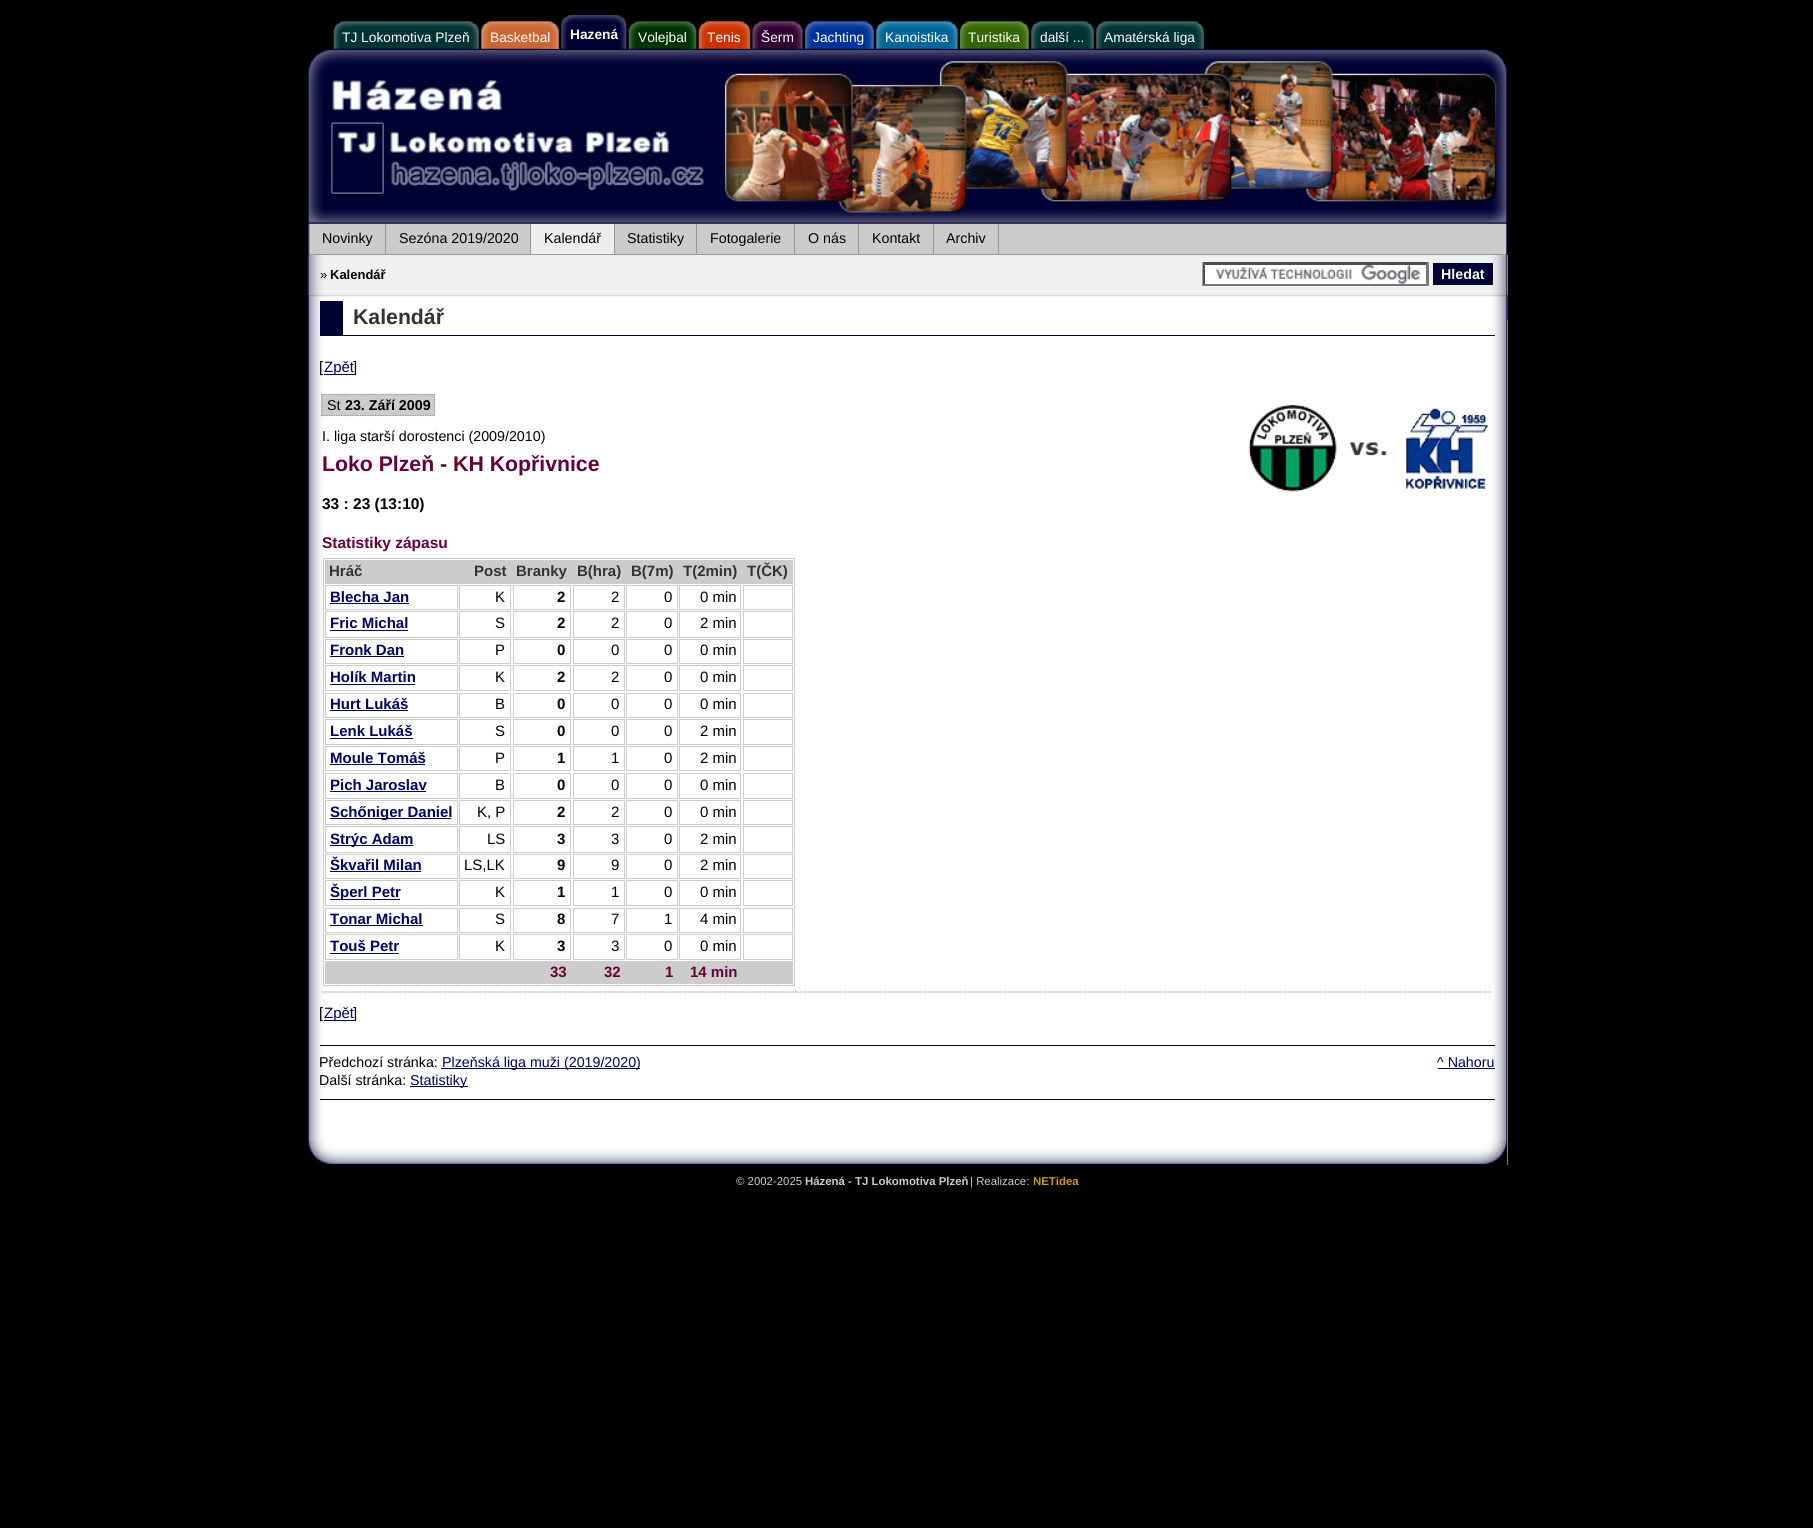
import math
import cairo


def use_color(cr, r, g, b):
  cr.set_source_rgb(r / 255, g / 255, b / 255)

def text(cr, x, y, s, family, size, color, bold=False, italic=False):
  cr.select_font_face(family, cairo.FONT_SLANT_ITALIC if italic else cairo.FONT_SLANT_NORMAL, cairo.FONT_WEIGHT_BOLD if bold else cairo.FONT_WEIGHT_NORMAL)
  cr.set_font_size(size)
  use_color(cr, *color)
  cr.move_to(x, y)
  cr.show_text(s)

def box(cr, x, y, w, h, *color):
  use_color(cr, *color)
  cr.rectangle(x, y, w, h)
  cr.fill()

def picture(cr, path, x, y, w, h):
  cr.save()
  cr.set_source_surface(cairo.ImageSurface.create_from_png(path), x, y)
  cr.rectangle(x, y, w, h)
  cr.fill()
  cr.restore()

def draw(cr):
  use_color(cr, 0, 0, 0)
  cr.paint()
  picture(cr, "img_21.png", 307, 48, 1201, 176)
  picture(cr, "img_01.png", 332, 21, 148, 28)
  picture(cr, "img_02.png", 461, 21, 19, 28)
  picture(cr, "img_03.png", 480, 21, 80, 28)
  picture(cr, "img_04.png", 541, 21, 19, 28)
  picture(cr, "img_05.png", 560, 14, 68, 35)
  picture(cr, "img_06.png", 609, 14, 19, 35)
  picture(cr, "img_07.png", 627, 20, 71, 29)
  picture(cr, "img_08.png", 679, 21, 19, 28)
  picture(cr, "img_09.png", 697, 21, 55, 28)
  picture(cr, "img_10.png", 732, 21, 20, 28)
  picture(cr, "img_11.png", 751, 21, 53, 28)
  picture(cr, "img_12.png", 785, 21, 19, 28)
  picture(cr, "img_13.png", 803, 21, 72, 28)
  picture(cr, "img_14.png", 856, 21, 19, 28)
  picture(cr, "img_15.png", 875, 21, 84, 28)
  picture(cr, "img_16.png", 940, 21, 19, 28)
  picture(cr, "img_17.png", 958, 21, 72, 28)
  picture(cr, "img_18.png", 1011, 21, 19, 28)
  picture(cr, "img_19.png", 1030, 21, 65, 28)
  picture(cr, "img_02.png", 1076, 21, 19, 28)
  picture(cr, "img_20.png", 1095, 21, 110, 28)
  picture(cr, "img_02.png", 1186, 21, 19, 28)
  picture(cr, "img_22.png", 307, 223, 1201, 32)
  box(cr, 309, 254, 1197, 1, 153, 153, 153)
  box(cr, 309, 224, 1, 30, 153, 153, 153)
  box(cr, 385, 224, 1, 30, 153, 153, 153)
  box(cr, 531, 224, 83, 30, 238, 238, 238)
  box(cr, 530, 224, 1, 30, 153, 153, 153)
  box(cr, 614, 224, 1, 30, 153, 153, 153)
  box(cr, 696, 224, 1, 30, 153, 153, 153)
  box(cr, 794, 224, 1, 30, 153, 153, 153)
  box(cr, 858, 224, 1, 30, 153, 153, 153)
  box(cr, 998, 224, 1, 30, 153, 153, 153)
  box(cr, 933, 224, 1, 30, 153, 153, 153)
  box(cr, 1507, 255, 1, 40, 238, 238, 238)
  picture(cr, "img_23.png", 307, 255, 1201, 40)
  box(cr, 1203, 263, 226, 23, 255, 255, 255)
  picture(cr, "img_24.png", 1216, 265, 204, 19)
  use_color(cr, 79, 79, 79)
  cr.new_path()
  cr.move_to(1202, 262)
  cr.line_to(1429, 262)
  cr.line_to(1426, 265)
  cr.line_to(1205, 265)
  cr.close_path()
  cr.fill()
  use_color(cr, 118, 118, 118)
  cr.new_path()
  cr.move_to(1429, 262.5)
  cr.line_to(1429, 286)
  cr.line_to(1426, 284)
  cr.line_to(1426, 265)
  cr.close_path()
  cr.fill()
  cr.new_path()
  cr.move_to(1429, 286)
  cr.line_to(1202, 286)
  cr.line_to(1205, 284)
  cr.line_to(1426, 284)
  cr.close_path()
  cr.fill()
  use_color(cr, 79, 79, 79)
  cr.new_path()
  cr.move_to(1202.5, 286)
  cr.line_to(1202.5, 262.5)
  cr.line_to(1205, 265)
  cr.line_to(1205, 284)
  cr.close_path()
  cr.fill()
  box(cr, 1433, 263, 60, 22, 0, 0, 51)
  box(cr, 1507, 295, 1, 870, 255, 255, 255)
  picture(cr, "img_25.png", 307, 295, 1201, 845)
  picture(cr, "img_26.png", 307, 295, 1201, 25)
  box(cr, 343, 335, 1152, 1, 0, 0, 51)
  box(cr, 320, 301, 23, 35, 0, 0, 51)
  box(cr, 324, 374, 30, 1, 0, 0, 102)
  cr.new_path()
  cr.move_to(322.5, 992)
  cr.line_to(1492.5, 992)
  use_color(cr, 153, 153, 153)
  cr.set_line_width(1.2)
  cr.set_dash([1.25, 1.25])
  cr.stroke()
  box(cr, 321, 394, 114, 22, 204, 204, 204)
  cr.new_path()
  cr.move_to(321, 394.5)
  cr.line_to(345, 394.5)
  cr.move_to(321, 415.5)
  cr.line_to(345, 415.5)
  cr.move_to(322, 394)
  cr.line_to(322, 416)
  use_color(cr, 153, 153, 153)
  cr.stroke()
  cr.new_path()
  cr.move_to(345, 394.5)
  cr.line_to(435, 394.5)
  cr.stroke()
  cr.new_path()
  cr.move_to(434.5, 394)
  cr.line_to(434.5, 416)
  cr.stroke()
  cr.new_path()
  cr.move_to(345, 415.5)
  cr.line_to(435, 415.5)
  cr.stroke()
  picture(cr, "img_27.png", 1248, 404, 240, 88)
  cr.rectangle(323.5, 558.5, 471, 427)
  use_color(cr, 204, 204, 204)
  cr.set_line_width(1)
  cr.set_dash([])
  cr.stroke()
  box(cr, 325, 560, 468, 24, 204, 204, 204)
  cr.rectangle(325.5, 585.5, 132, 24)
  cr.stroke()
  box(cr, 330, 603, 79, 1, 0, 0, 102)
  cr.rectangle(459.5, 585.5, 51, 24)
  use_color(cr, 204, 204, 204)
  cr.stroke()
  cr.rectangle(513.5, 585.5, 57, 24)
  cr.stroke()
  cr.rectangle(573.5, 585.5, 51, 24)
  cr.stroke()
  cr.rectangle(626.5, 585.5, 51, 24)
  cr.stroke()
  cr.rectangle(679.5, 585.5, 61, 24)
  cr.stroke()
  cr.rectangle(743.5, 585.5, 49, 24)
  cr.stroke()
  cr.rectangle(325.5, 611.5, 132, 26)
  cr.stroke()
  box(cr, 330, 630, 78, 1, 0, 0, 102)
  cr.rectangle(459.5, 611.5, 51, 26)
  use_color(cr, 204, 204, 204)
  cr.stroke()
  cr.rectangle(513.5, 611.5, 57, 26)
  cr.stroke()
  cr.rectangle(573.5, 611.5, 51, 26)
  cr.stroke()
  cr.rectangle(626.5, 611.5, 51, 26)
  cr.stroke()
  cr.rectangle(679.5, 611.5, 61, 26)
  cr.stroke()
  cr.rectangle(743.5, 611.5, 49, 26)
  cr.stroke()
  cr.rectangle(325.5, 639.5, 132, 24)
  cr.stroke()
  box(cr, 330, 656, 74, 1, 0, 0, 102)
  cr.rectangle(459.5, 639.5, 51, 24)
  use_color(cr, 204, 204, 204)
  cr.stroke()
  cr.rectangle(513.5, 639.5, 57, 24)
  cr.stroke()
  cr.rectangle(573.5, 639.5, 51, 24)
  cr.stroke()
  cr.rectangle(626.5, 639.5, 51, 24)
  cr.stroke()
  cr.rectangle(679.5, 639.5, 61, 24)
  cr.stroke()
  cr.rectangle(743.5, 639.5, 49, 24)
  cr.stroke()
  cr.rectangle(325.5, 665.5, 132, 25)
  cr.stroke()
  box(cr, 330, 684, 85, 1, 0, 0, 102)
  cr.rectangle(459.5, 665.5, 51, 25)
  use_color(cr, 204, 204, 204)
  cr.stroke()
  cr.rectangle(513.5, 665.5, 57, 25)
  cr.stroke()
  cr.rectangle(573.5, 665.5, 51, 25)
  cr.stroke()
  cr.rectangle(626.5, 665.5, 51, 25)
  cr.stroke()
  cr.rectangle(679.5, 665.5, 61, 25)
  cr.stroke()
  cr.rectangle(743.5, 665.5, 49, 25)
  cr.stroke()
  cr.rectangle(325.5, 693.5, 132, 24)
  cr.stroke()
  box(cr, 330, 710, 78, 1, 0, 0, 102)
  cr.rectangle(459.5, 693.5, 51, 24)
  use_color(cr, 204, 204, 204)
  cr.stroke()
  cr.rectangle(513.5, 693.5, 57, 24)
  cr.stroke()
  cr.rectangle(573.5, 693.5, 51, 24)
  cr.stroke()
  cr.rectangle(626.5, 693.5, 51, 24)
  cr.stroke()
  cr.rectangle(679.5, 693.5, 61, 24)
  cr.stroke()
  cr.rectangle(743.5, 693.5, 49, 24)
  cr.stroke()
  cr.rectangle(325.5, 719.5, 132, 25)
  cr.stroke()
  box(cr, 330, 738, 83, 1, 0, 0, 102)
  cr.rectangle(459.5, 719.5, 51, 25)
  use_color(cr, 204, 204, 204)
  cr.stroke()
  cr.rectangle(513.5, 719.5, 57, 25)
  cr.stroke()
  cr.rectangle(573.5, 719.5, 51, 25)
  cr.stroke()
  cr.rectangle(626.5, 719.5, 51, 25)
  cr.stroke()
  cr.rectangle(679.5, 719.5, 61, 25)
  cr.stroke()
  cr.rectangle(743.5, 719.5, 49, 25)
  cr.stroke()
  cr.rectangle(325.5, 746.5, 132, 24)
  cr.stroke()
  box(cr, 330, 764, 95, 1, 0, 0, 102)
  cr.rectangle(459.5, 746.5, 51, 24)
  use_color(cr, 204, 204, 204)
  cr.stroke()
  cr.rectangle(513.5, 746.5, 57, 24)
  cr.stroke()
  cr.rectangle(573.5, 746.5, 51, 24)
  cr.stroke()
  cr.rectangle(626.5, 746.5, 51, 24)
  cr.stroke()
  cr.rectangle(679.5, 746.5, 61, 24)
  cr.stroke()
  cr.rectangle(743.5, 746.5, 49, 24)
  cr.stroke()
  cr.rectangle(325.5, 773.5, 132, 25)
  cr.stroke()
  box(cr, 330, 791, 96, 1, 0, 0, 102)
  cr.rectangle(459.5, 773.5, 51, 25)
  use_color(cr, 204, 204, 204)
  cr.stroke()
  cr.rectangle(513.5, 773.5, 57, 25)
  cr.stroke()
  cr.rectangle(573.5, 773.5, 51, 25)
  cr.stroke()
  cr.rectangle(626.5, 773.5, 51, 25)
  cr.stroke()
  cr.rectangle(679.5, 773.5, 61, 25)
  cr.stroke()
  cr.rectangle(743.5, 773.5, 49, 25)
  cr.stroke()
  cr.rectangle(325.5, 800.5, 132, 24)
  cr.stroke()
  box(cr, 330, 818, 121, 1, 0, 0, 102)
  cr.rectangle(459.5, 800.5, 51, 24)
  use_color(cr, 204, 204, 204)
  cr.stroke()
  cr.rectangle(513.5, 800.5, 57, 24)
  cr.stroke()
  cr.rectangle(573.5, 800.5, 51, 24)
  cr.stroke()
  cr.rectangle(626.5, 800.5, 51, 24)
  cr.stroke()
  cr.rectangle(679.5, 800.5, 61, 24)
  cr.stroke()
  cr.rectangle(743.5, 800.5, 49, 24)
  cr.stroke()
  cr.rectangle(325.5, 826.5, 132, 26)
  cr.stroke()
  box(cr, 330, 845, 83, 1, 0, 0, 102)
  cr.rectangle(459.5, 826.5, 51, 26)
  use_color(cr, 204, 204, 204)
  cr.stroke()
  cr.rectangle(513.5, 826.5, 57, 26)
  cr.stroke()
  cr.rectangle(573.5, 826.5, 51, 26)
  cr.stroke()
  cr.rectangle(626.5, 826.5, 51, 26)
  cr.stroke()
  cr.rectangle(679.5, 826.5, 61, 26)
  cr.stroke()
  cr.rectangle(743.5, 826.5, 49, 26)
  cr.stroke()
  cr.rectangle(325.5, 854.5, 132, 24)
  cr.stroke()
  box(cr, 330, 871, 91, 1, 0, 0, 102)
  cr.rectangle(459.5, 854.5, 51, 24)
  use_color(cr, 204, 204, 204)
  cr.stroke()
  cr.rectangle(513.5, 854.5, 57, 24)
  cr.stroke()
  cr.rectangle(573.5, 854.5, 51, 24)
  cr.stroke()
  cr.rectangle(626.5, 854.5, 51, 24)
  cr.stroke()
  cr.rectangle(679.5, 854.5, 61, 24)
  cr.stroke()
  cr.rectangle(743.5, 854.5, 49, 24)
  cr.stroke()
  cr.rectangle(325.5, 880.5, 132, 25)
  cr.stroke()
  box(cr, 330, 899, 70, 1, 0, 0, 102)
  cr.rectangle(459.5, 880.5, 51, 25)
  use_color(cr, 204, 204, 204)
  cr.stroke()
  cr.rectangle(513.5, 880.5, 57, 25)
  cr.stroke()
  cr.rectangle(573.5, 880.5, 51, 25)
  cr.stroke()
  cr.rectangle(626.5, 880.5, 51, 25)
  cr.stroke()
  cr.rectangle(679.5, 880.5, 61, 25)
  cr.stroke()
  cr.rectangle(743.5, 880.5, 49, 25)
  cr.stroke()
  cr.rectangle(325.5, 908.5, 132, 24)
  cr.stroke()
  box(cr, 330, 925, 93, 1, 0, 0, 102)
  cr.rectangle(459.5, 908.5, 51, 24)
  use_color(cr, 204, 204, 204)
  cr.stroke()
  cr.rectangle(513.5, 908.5, 57, 24)
  cr.stroke()
  cr.rectangle(573.5, 908.5, 51, 24)
  cr.stroke()
  cr.rectangle(626.5, 908.5, 51, 24)
  cr.stroke()
  cr.rectangle(679.5, 908.5, 61, 24)
  cr.stroke()
  cr.rectangle(743.5, 908.5, 49, 24)
  cr.stroke()
  cr.rectangle(325.5, 934.5, 132, 25)
  cr.stroke()
  box(cr, 330, 953, 69, 1, 0, 0, 102)
  cr.rectangle(459.5, 934.5, 51, 25)
  use_color(cr, 204, 204, 204)
  cr.stroke()
  cr.rectangle(513.5, 934.5, 57, 25)
  cr.stroke()
  cr.rectangle(573.5, 934.5, 51, 25)
  cr.stroke()
  cr.rectangle(626.5, 934.5, 51, 25)
  cr.stroke()
  cr.rectangle(679.5, 934.5, 61, 25)
  cr.stroke()
  cr.rectangle(743.5, 934.5, 49, 25)
  cr.stroke()
  box(cr, 325, 961, 468, 23, 204, 204, 204)
  box(cr, 324, 1020, 30, 1, 0, 0, 102)
  box(cr, 320, 1045, 1175, 1, 0, 0, 51)
  box(cr, 441, 1068, 199, 1, 0, 0, 102)
  box(cr, 410, 1086, 58, 1, 0, 0, 102)
  box(cr, 1438, 1068, 57, 1, 0, 0, 102)
  box(cr, 320, 1099, 1175, 1, 0, 0, 51)
  picture(cr, "img_28.png", 307, 1140, 1201, 25)
  text(cr, 342, 42, "TJ Lokomotiva Plzeň", "Liberation Sans", 13.75, (255, 255, 255))
  text(cr, 490, 42, "Basketbal", "Liberation Sans", 13.75, (255, 255, 255))
  text(cr, 570, 39, "Hazená", "Liberation Sans", 13.75, (255, 255, 255), bold=True)
  text(cr, 638, 42, "Volejbal", "Liberation Sans", 13.75, (255, 255, 255))
  text(cr, 707, 42, "Tenis", "Liberation Sans", 13.75, (255, 255, 255))
  text(cr, 761, 42, "Šerm", "Liberation Sans", 13.75, (255, 255, 255))
  text(cr, 813, 42, "Jachting", "Liberation Sans", 13.75, (255, 255, 255))
  text(cr, 885, 42, "Kanoistika", "Liberation Sans", 13.75, (255, 255, 255))
  text(cr, 968, 42, "Turistika", "Liberation Sans", 13.75, (255, 255, 255))
  text(cr, 1040, 42, "další ...", "Liberation Sans", 13.75, (255, 255, 255))
  text(cr, 1104, 42, "Amatérská liga", "Liberation Sans", 13.75, (255, 255, 255))
  text(cr, 322, 243, "Novinky", "Liberation Sans", 14.25, (0, 0, 0))
  text(cr, 399, 243, "Sezóna 2019/2020", "Liberation Sans", 14.25, (0, 0, 0))
  text(cr, 544, 243, "Kalendář", "Liberation Sans", 14.25, (0, 0, 0))
  text(cr, 627, 243, "Statistiky", "Liberation Sans", 14.25, (0, 0, 0))
  text(cr, 710, 243, "Fotogalerie", "Liberation Sans", 14.25, (0, 0, 0))
  text(cr, 808, 243, "O nás", "Liberation Sans", 14.25, (0, 0, 0))
  text(cr, 872, 243, "Kontakt", "Liberation Sans", 14.25, (0, 0, 0))
  text(cr, 946, 243, "Archiv", "Liberation Sans", 14.25, (0, 0, 0))
  text(cr, 320, 279, "»", "Liberation Sans", 13, (0, 0, 0))
  text(cr, 330, 279, "Kalendář", "Liberation Sans", 13, (0, 0, 0), bold=True)
  text(cr, 1441, 279, "Hledat", "Liberation Sans", 14.25, (255, 255, 255), bold=True)
  text(cr, 353, 324, "Kalendář", "Liberation Sans", 21.25, (51, 51, 51), bold=True)
  text(cr, 319, 372, "[", "Liberation Sans", 15, (0, 0, 0))
  text(cr, 324, 372, "Zpět", "Liberation Sans", 15, (0, 0, 102))
  text(cr, 353, 372, "]", "Liberation Sans", 15, (0, 0, 0))
  text(cr, 327, 410, "St", "Liberation Sans", 14.25, (0, 0, 0))
  text(cr, 345, 410, "23. Září 2009", "Liberation Sans", 14.25, (0, 0, 0), bold=True)
  text(cr, 322, 441, "I. liga starší dorostenci (2009/2010)", "Liberation Sans", 14.25, (0, 0, 0))
  text(cr, 322, 471, "Loko Plzeň - KH Kopřivnice", "Liberation Sans", 21.25, (102, 0, 51), bold=True)
  text(cr, 322, 509, "33 : 23 (13:10)", "Liberation Sans", 15.5, (0, 0, 0), bold=True)
  text(cr, 322, 548, "Statistiky zápasu", "Liberation Sans", 15.5, (102, 0, 51), bold=True)
  text(cr, 329, 576, "Hráč", "Liberation Sans", 15, (51, 51, 51), bold=True)
  text(cr, 474, 576, "Post", "Liberation Sans", 15, (51, 51, 51), bold=True)
  text(cr, 516, 576, "Branky", "Liberation Sans", 15, (51, 51, 51), bold=True)
  text(cr, 577, 576, "B(hra)", "Liberation Sans", 15, (51, 51, 51), bold=True)
  text(cr, 631, 576, "B(7m)", "Liberation Sans", 15, (51, 51, 51), bold=True)
  text(cr, 683, 576, "T(2min)", "Liberation Sans", 15, (51, 51, 51), bold=True)
  text(cr, 747, 576, "T(ČK)", "Liberation Sans", 15, (51, 51, 51), bold=True)
  text(cr, 330, 602, "Blecha Jan", "Liberation Sans", 15, (0, 0, 102), bold=True)
  text(cr, 495, 602, "K", "Liberation Sans", 15, (0, 0, 0))
  text(cr, 557, 602, "2", "Liberation Sans", 15, (0, 0, 0), bold=True)
  text(cr, 611, 602, "2", "Liberation Sans", 15, (0, 0, 0))
  text(cr, 664, 602, "0", "Liberation Sans", 15, (0, 0, 0))
  text(cr, 700, 602, "0 min", "Liberation Sans", 15, (0, 0, 0))
  text(cr, 330, 628, "Fric Michal", "Liberation Sans", 15, (0, 0, 102), bold=True)
  text(cr, 495, 628, "S", "Liberation Sans", 15, (0, 0, 0))
  text(cr, 557, 628, "2", "Liberation Sans", 15, (0, 0, 0), bold=True)
  text(cr, 611, 628, "2", "Liberation Sans", 15, (0, 0, 0))
  text(cr, 664, 628, "0", "Liberation Sans", 15, (0, 0, 0))
  text(cr, 700, 628, "2 min", "Liberation Sans", 15, (0, 0, 0))
  text(cr, 330, 655, "Fronk Dan", "Liberation Sans", 15, (0, 0, 102), bold=True)
  text(cr, 495, 655, "P", "Liberation Sans", 15, (0, 0, 0))
  text(cr, 557, 655, "0", "Liberation Sans", 15, (0, 0, 0), bold=True)
  text(cr, 611, 655, "0", "Liberation Sans", 15, (0, 0, 0))
  text(cr, 664, 655, "0", "Liberation Sans", 15, (0, 0, 0))
  text(cr, 700, 655, "0 min", "Liberation Sans", 15, (0, 0, 0))
  text(cr, 330, 682, "Holík Martin", "Liberation Sans", 15, (0, 0, 102), bold=True)
  text(cr, 495, 682, "K", "Liberation Sans", 15, (0, 0, 0))
  text(cr, 557, 682, "2", "Liberation Sans", 15, (0, 0, 0), bold=True)
  text(cr, 611, 682, "2", "Liberation Sans", 15, (0, 0, 0))
  text(cr, 664, 682, "0", "Liberation Sans", 15, (0, 0, 0))
  text(cr, 700, 682, "0 min", "Liberation Sans", 15, (0, 0, 0))
  text(cr, 330, 709, "Hurt Lukáš", "Liberation Sans", 15, (0, 0, 102), bold=True)
  text(cr, 495, 709, "B", "Liberation Sans", 15, (0, 0, 0))
  text(cr, 557, 709, "0", "Liberation Sans", 15, (0, 0, 0), bold=True)
  text(cr, 611, 709, "0", "Liberation Sans", 15, (0, 0, 0))
  text(cr, 664, 709, "0", "Liberation Sans", 15, (0, 0, 0))
  text(cr, 700, 709, "0 min", "Liberation Sans", 15, (0, 0, 0))
  text(cr, 330, 736, "Lenk Lukáš", "Liberation Sans", 15, (0, 0, 102), bold=True)
  text(cr, 495, 736, "S", "Liberation Sans", 15, (0, 0, 0))
  text(cr, 557, 736, "0", "Liberation Sans", 15, (0, 0, 0), bold=True)
  text(cr, 611, 736, "0", "Liberation Sans", 15, (0, 0, 0))
  text(cr, 664, 736, "0", "Liberation Sans", 15, (0, 0, 0))
  text(cr, 700, 736, "2 min", "Liberation Sans", 15, (0, 0, 0))
  text(cr, 330, 763, "Moule Tomáš", "Liberation Sans", 15, (0, 0, 102), bold=True)
  text(cr, 495, 763, "P", "Liberation Sans", 15, (0, 0, 0))
  text(cr, 557, 763, "1", "Liberation Sans", 15, (0, 0, 0), bold=True)
  text(cr, 611, 763, "1", "Liberation Sans", 15, (0, 0, 0))
  text(cr, 664, 763, "0", "Liberation Sans", 15, (0, 0, 0))
  text(cr, 700, 763, "2 min", "Liberation Sans", 15, (0, 0, 0))
  text(cr, 330, 790, "Pich Jaroslav", "Liberation Sans", 15, (0, 0, 102), bold=True)
  text(cr, 495, 790, "B", "Liberation Sans", 15, (0, 0, 0))
  text(cr, 557, 790, "0", "Liberation Sans", 15, (0, 0, 0), bold=True)
  text(cr, 611, 790, "0", "Liberation Sans", 15, (0, 0, 0))
  text(cr, 664, 790, "0", "Liberation Sans", 15, (0, 0, 0))
  text(cr, 700, 790, "0 min", "Liberation Sans", 15, (0, 0, 0))
  text(cr, 330, 817, "Schőniger Daniel", "Liberation Sans", 15, (0, 0, 102), bold=True)
  text(cr, 477, 817, "K, P", "Liberation Sans", 15, (0, 0, 0))
  text(cr, 557, 817, "2", "Liberation Sans", 15, (0, 0, 0), bold=True)
  text(cr, 611, 817, "2", "Liberation Sans", 15, (0, 0, 0))
  text(cr, 664, 817, "0", "Liberation Sans", 15, (0, 0, 0))
  text(cr, 700, 817, "0 min", "Liberation Sans", 15, (0, 0, 0))
  text(cr, 330, 844, "Strýc Adam", "Liberation Sans", 15, (0, 0, 102), bold=True)
  text(cr, 487, 844, "LS", "Liberation Sans", 15, (0, 0, 0))
  text(cr, 557, 844, "3", "Liberation Sans", 15, (0, 0, 0), bold=True)
  text(cr, 611, 844, "3", "Liberation Sans", 15, (0, 0, 0))
  text(cr, 664, 844, "0", "Liberation Sans", 15, (0, 0, 0))
  text(cr, 700, 844, "2 min", "Liberation Sans", 15, (0, 0, 0))
  text(cr, 330, 870, "Škvařil Milan", "Liberation Sans", 15, (0, 0, 102), bold=True)
  text(cr, 464, 870, "LS,LK", "Liberation Sans", 15, (0, 0, 0))
  text(cr, 557, 870, "9", "Liberation Sans", 15, (0, 0, 0), bold=True)
  text(cr, 611, 870, "9", "Liberation Sans", 15, (0, 0, 0))
  text(cr, 664, 870, "0", "Liberation Sans", 15, (0, 0, 0))
  text(cr, 700, 870, "2 min", "Liberation Sans", 15, (0, 0, 0))
  text(cr, 330, 897, "Šperl Petr", "Liberation Sans", 15, (0, 0, 102), bold=True)
  text(cr, 495, 897, "K", "Liberation Sans", 15, (0, 0, 0))
  text(cr, 557, 897, "1", "Liberation Sans", 15, (0, 0, 0), bold=True)
  text(cr, 611, 897, "1", "Liberation Sans", 15, (0, 0, 0))
  text(cr, 664, 897, "0", "Liberation Sans", 15, (0, 0, 0))
  text(cr, 700, 897, "0 min", "Liberation Sans", 15, (0, 0, 0))
  text(cr, 330, 924, "Tonar Michal", "Liberation Sans", 15, (0, 0, 102), bold=True)
  text(cr, 495, 924, "S", "Liberation Sans", 15, (0, 0, 0))
  text(cr, 557, 924, "8", "Liberation Sans", 15, (0, 0, 0), bold=True)
  text(cr, 611, 924, "7", "Liberation Sans", 15, (0, 0, 0))
  text(cr, 664, 924, "1", "Liberation Sans", 15, (0, 0, 0))
  text(cr, 700, 924, "4 min", "Liberation Sans", 15, (0, 0, 0))
  text(cr, 330, 951, "Touš Petr", "Liberation Sans", 15, (0, 0, 102), bold=True)
  text(cr, 495, 951, "K", "Liberation Sans", 15, (0, 0, 0))
  text(cr, 557, 951, "3", "Liberation Sans", 15, (0, 0, 0), bold=True)
  text(cr, 611, 951, "3", "Liberation Sans", 15, (0, 0, 0))
  text(cr, 664, 951, "0", "Liberation Sans", 15, (0, 0, 0))
  text(cr, 700, 951, "0 min", "Liberation Sans", 15, (0, 0, 0))
  text(cr, 550, 977, "33", "Liberation Sans", 15, (102, 0, 51), bold=True)
  text(cr, 604, 977, "32", "Liberation Sans", 15, (102, 0, 51), bold=True)
  text(cr, 665, 977, "1", "Liberation Sans", 15, (102, 0, 51), bold=True)
  text(cr, 690, 977, "14 min", "Liberation Sans", 15, (102, 0, 51), bold=True)
  text(cr, 319, 1018, "[", "Liberation Sans", 15, (0, 0, 0))
  text(cr, 324, 1018, "Zpět", "Liberation Sans", 15, (0, 0, 102))
  text(cr, 353, 1018, "]", "Liberation Sans", 15, (0, 0, 0))
  text(cr, 319, 1067, "Předchozí stránka:", "Liberation Sans", 14.25, (0, 0, 0))
  text(cr, 442, 1067, "Plzeňská liga muži (2019/2020)", "Liberation Sans", 14.25, (0, 0, 102))
  text(cr, 319, 1085, "Další stránka:", "Liberation Sans", 14.25, (0, 0, 0))
  text(cr, 410, 1085, "Statistiky", "Liberation Sans", 14.25, (0, 0, 102))
  text(cr, 1437, 1067, "^ Nahoru", "Liberation Sans", 14.25, (0, 0, 102))
  text(cr, 736, 1185, "© 2002-2025", "Liberation Sans", 11.4, (204, 204, 204))
  text(cr, 805, 1185, "Házená - TJ Lokomotiva Plzeň", "Liberation Sans", 11.4, (204, 204, 204), bold=True)
  text(cr, 970, 1185, "| Realizace:", "Liberation Sans", 11.4, (204, 204, 204))
  text(cr, 1033, 1185, "NETidea", "Liberation Sans", 11.4, (204, 153, 0), bold=True)


surface = cairo.ImageSurface(cairo.FORMAT_RGB24, 1813, 1528)
cr = cairo.Context(surface)
options = cairo.FontOptions()
options.set_hint_metrics(cairo.HINT_METRICS_OFF)
options.set_hint_style(cairo.HINT_STYLE_NONE)
cr.set_font_options(options)
cr.set_miter_limit(4)
draw(cr)
surface.write_to_png("out.png")
